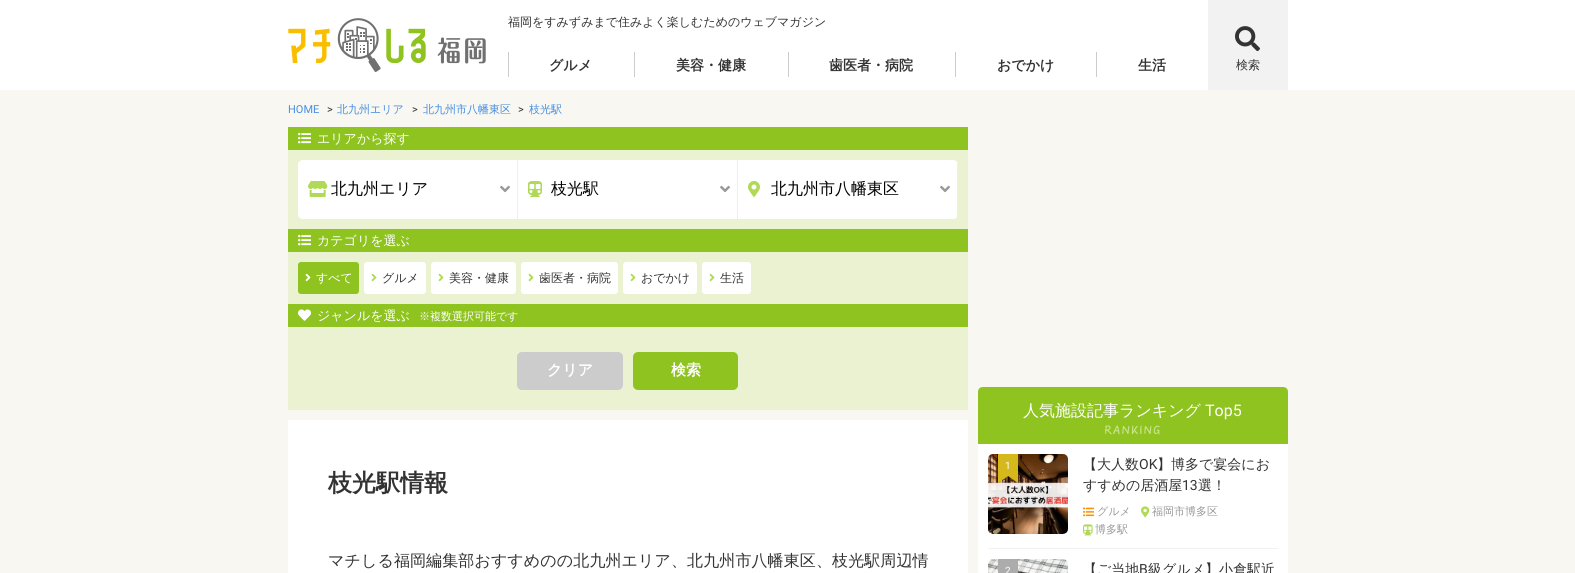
import math
import cairo


def use_color(cr, r, g, b):
  cr.set_source_rgb(r / 255, g / 255, b / 255)

def text(cr, x, y, s, family, size, color, bold=False, italic=False):
  cr.select_font_face(family, cairo.FONT_SLANT_ITALIC if italic else cairo.FONT_SLANT_NORMAL, cairo.FONT_WEIGHT_BOLD if bold else cairo.FONT_WEIGHT_NORMAL)
  cr.set_font_size(size)
  use_color(cr, *color)
  cr.move_to(x, y)
  cr.show_text(s)

def spaced_text(cr, x, y, s, letter, word):
  cr.move_to(x, y)
  for ch in s:
    cr.show_text(ch)
    cr.rel_move_to(letter + word * (ch == ' '), 0)

def box(cr, x, y, w, h, *color):
  use_color(cr, *color)
  cr.rectangle(x, y, w, h)
  cr.fill()

def round_rect(cr, x, y, w, h, r):
  cr.new_sub_path()
  for i, (u, v) in enumerate([(x + w - r, y + h - r), (x + r, y + h - r), (x + r, y + r), (x + w - r, y + r)]):
    cr.arc(u, v, r, i * math.pi / 2, (i + 1) * math.pi / 2)
  cr.close_path()

def picture(cr, path, x, y, w, h):
  cr.save()
  cr.set_source_surface(cairo.ImageSurface.create_from_png(path), x, y)
  cr.rectangle(x, y, w, h)
  cr.fill()
  cr.restore()

def draw(cr):
  use_color(cr, 255, 255, 255)
  cr.paint()
  picture(cr, "img_01.png", 288, 18, 198, 54)
  box(cr, 508, 52, 1, 25, 204, 204, 204)
  box(cr, 634, 52, 1, 25, 204, 204, 204)
  box(cr, 788, 52, 1, 25, 204, 204, 204)
  box(cr, 955, 52, 1, 25, 204, 204, 204)
  box(cr, 1096, 52, 1, 25, 204, 204, 204)
  box(cr, 1208, 0, 80, 90, 242, 242, 242)
  picture(cr, "img_02.png", 1235, 26, 25, 26)
  box(cr, 0, 90, 1575, 483, 248, 247, 241)
  box(cr, 288, 150, 680, 260, 234, 242, 210)
  box(cr, 288, 127, 680, 23, 143, 195, 31)
  picture(cr, "img_03.png", 298, 132, 13, 12)
  use_color(cr, 255, 255, 255)
  cr.new_path()
  cr.move_to(303, 160)
  cr.line_to(518, 160)
  cr.line_to(518, 219)
  cr.line_to(303, 219)
  cr.curve_to(300, 219, 298, 217, 298, 214)
  cr.line_to(298, 165)
  cr.curve_to(298, 162, 300, 160, 303, 160)
  cr.close_path()
  cr.fill()
  picture(cr, "img_04.png", 308, 181, 20, 16)
  box(cr, 517, 160, 1, 59, 238, 238, 238)
  picture(cr, "img_05.png", 500, 185, 10, 8)
  box(cr, 518, 160, 219, 59, 255, 255, 255)
  picture(cr, "img_06.png", 528, 181, 14, 16)
  box(cr, 737, 160, 1, 59, 238, 238, 238)
  picture(cr, "img_05.png", 720, 185, 10, 8)
  use_color(cr, 255, 255, 255)
  cr.new_path()
  cr.move_to(738, 160)
  cr.line_to(953, 160)
  cr.curve_to(956, 160, 958, 162, 958, 165)
  cr.line_to(958, 214)
  cr.curve_to(958, 217, 956, 219, 953, 219)
  cr.line_to(738, 219)
  cr.close_path()
  cr.fill()
  picture(cr, "img_07.png", 748, 181, 12, 16)
  box(cr, 957, 163, 1, 54, 238, 238, 238)
  picture(cr, "img_05.png", 940, 185, 10, 8)
  box(cr, 288, 229, 680, 23, 143, 195, 31)
  picture(cr, "img_03.png", 298, 234, 13, 12)
  round_rect(cr, 298, 262, 61, 32, 3)
  cr.fill()
  picture(cr, "img_08.png", 305, 273, 6, 9)
  use_color(cr, 255, 255, 255)
  round_rect(cr, 364, 262, 62, 32, 3)
  cr.fill()
  picture(cr, "img_09.png", 371, 273, 6, 9)
  round_rect(cr, 431, 262, 85, 32, 3)
  cr.fill()
  picture(cr, "img_09.png", 438, 273, 6, 9)
  round_rect(cr, 521, 262, 97, 32, 3)
  cr.fill()
  picture(cr, "img_09.png", 528, 273, 6, 9)
  round_rect(cr, 623, 262, 74, 32, 3)
  cr.fill()
  picture(cr, "img_09.png", 630, 273, 6, 9)
  round_rect(cr, 702, 262, 49, 32, 3)
  cr.fill()
  picture(cr, "img_09.png", 709, 273, 6, 9)
  box(cr, 288, 304, 680, 23, 143, 195, 31)
  picture(cr, "img_10.png", 298, 309, 13, 12)
  use_color(cr, 204, 204, 204)
  round_rect(cr, 517, 352, 106, 38, 5)
  cr.fill()
  use_color(cr, 143, 195, 31)
  round_rect(cr, 633, 352, 105, 38, 5)
  cr.fill()
  box(cr, 288, 420, 680, 153, 255, 255, 255)
  use_color(cr, 143, 195, 31)
  cr.new_path()
  cr.move_to(983, 387)
  cr.line_to(1283, 387)
  cr.curve_to(1286, 387, 1288, 389, 1288, 392)
  cr.line_to(1288, 444)
  cr.line_to(978, 444)
  cr.line_to(978, 392)
  cr.curve_to(978, 389, 980, 387, 983, 387)
  cr.close_path()
  cr.fill()
  picture(cr, "img_11.png", 1105, 425, 55, 10)
  box(cr, 978, 444, 310, 129, 255, 255, 255)
  box(cr, 988, 548, 290, 1, 241, 241, 241)
  picture(cr, "img_12.png", 988, 454, 80, 80)
  box(cr, 998, 454, 20, 22, 213, 184, 27)
  cr.new_path()
  cr.move_to(1018, 476)
  cr.line_to(1018, 483)
  cr.line_to(1008, 476)
  cr.close_path()
  cr.move_to(998, 483)
  cr.line_to(998, 476)
  cr.line_to(1008, 476)
  cr.close_path()
  cr.fill()
  picture(cr, "img_13.png", 1083, 507, 11, 10)
  picture(cr, "img_14.png", 1141, 506, 9, 12)
  picture(cr, "img_15.png", 1083, 524, 10, 12)
  picture(cr, "img_16.png", 988, 559, 80, 14)
  box(cr, 998, 559, 20, 14, 172, 172, 172)
  text(cr, 508, 26, "福岡をすみずみまで住みよく楽しむためのウェブマガジン", "WenQuanYi Zen Hei Medium", 12, (51, 51, 51))
  text(cr, 549, 70, "グルメ", "WenQuanYi Zen Hei", 14, (51, 51, 51), bold=True)
  text(cr, 676, 70, "美容・健康", "WenQuanYi Zen Hei", 14, (51, 51, 51), bold=True)
  text(cr, 829, 70, "歯医者・病院", "WenQuanYi Zen Hei", 14, (51, 51, 51), bold=True)
  text(cr, 997, 70, "おでかけ", "WenQuanYi Zen Hei", 14, (51, 51, 51), bold=True)
  text(cr, 1138, 70, "生活", "WenQuanYi Zen Hei", 14, (51, 51, 51), bold=True)
  text(cr, 1236, 69, "検索", "WenQuanYi Zen Hei Medium", 12, (51, 51, 51))
  text(cr, 288, 113, "HOME", "Roboto", 11, (71, 142, 226))
  text(cr, 327, 113, ">", "Roboto", 11, (51, 51, 51))
  text(cr, 337, 113, "北九州エリア", "WenQuanYi Zen Hei Medium", 11, (71, 142, 226))
  text(cr, 412, 113, ">", "Roboto", 11, (51, 51, 51))
  text(cr, 423, 113, "北九州市八幡東区", "WenQuanYi Zen Hei Medium", 11, (71, 142, 226))
  text(cr, 518, 113, ">", "Roboto", 11, (51, 51, 51))
  text(cr, 529, 113, "枝光駅", "WenQuanYi Zen Hei Medium", 11, (71, 142, 226))
  text(cr, 317, 143, "エリアから探す", "WenQuanYi Zen Hei Medium", 13, (255, 255, 255))
  text(cr, 331, 194, "北九州エリア", "WenQuanYi Zen Hei Medium", 16, (0, 0, 0))
  text(cr, 551, 194, "枝光駅", "WenQuanYi Zen Hei Medium", 16, (0, 0, 0))
  text(cr, 771, 194, "北九州市八幡東区", "WenQuanYi Zen Hei Medium", 16, (0, 0, 0))
  text(cr, 317, 245, "カテゴリを選ぶ", "WenQuanYi Zen Hei Medium", 13, (255, 255, 255))
  text(cr, 316, 282, "すべて", "WenQuanYi Zen Hei Medium", 12, (255, 255, 255))
  text(cr, 382, 282, "グルメ", "WenQuanYi Zen Hei Medium", 12, (51, 51, 51))
  text(cr, 449, 282, "美容・健康", "WenQuanYi Zen Hei Medium", 12, (51, 51, 51))
  text(cr, 539, 282, "歯医者・病院", "WenQuanYi Zen Hei Medium", 12, (51, 51, 51))
  text(cr, 641, 282, "おでかけ", "WenQuanYi Zen Hei Medium", 12, (51, 51, 51))
  text(cr, 720, 282, "生活", "WenQuanYi Zen Hei Medium", 12, (51, 51, 51))
  text(cr, 317, 320, "ジャンルを選ぶ", "WenQuanYi Zen Hei Medium", 13, (255, 255, 255))
  text(cr, 419, 320, "※複数選択可能です", "WenQuanYi Zen Hei Medium", 11, (255, 255, 255))
  text(cr, 547, 375, "クリア", "WenQuanYi Zen Hei", 15, (255, 255, 255), bold=True)
  text(cr, 671, 375, "検索", "WenQuanYi Zen Hei", 15, (255, 255, 255), bold=True)
  text(cr, 328, 491, "枝光駅情報", "WenQuanYi Zen Hei", 24, (51, 51, 51), bold=True)
  cr.select_font_face("WenQuanYi Zen Hei Medium")
  cr.set_font_size(16)
  spaced_text(cr, 328, 566, "マチしる福岡編集部おすすめのの北九州エリア、北九州市八幡東区、枝光駅周辺情", 0.1, 0)
  text(cr, 1023, 416, "人気施設記事ランキング", "WenQuanYi Zen Hei Medium", 16, (255, 255, 255))
  text(cr, 1205, 416, "Top5", "Roboto", 16, (255, 255, 255))
  text(cr, 1005, 469, "1", "Roboto", 10, (255, 255, 255))
  text(cr, 1083, 469, "【大人数", "WenQuanYi Zen Hei Medium", 14, (51, 51, 51))
  text(cr, 1139, 469, "OK", "Roboto", 14, (51, 51, 51))
  text(cr, 1157, 469, "】博多で宴会にお", "WenQuanYi Zen Hei Medium", 14, (51, 51, 51))
  text(cr, 1083, 490, "すすめの居酒屋", "WenQuanYi Zen Hei Medium", 14, (51, 51, 51))
  text(cr, 1182, 490, "13", "Roboto", 14, (51, 51, 51))
  text(cr, 1198, 490, "選！", "WenQuanYi Zen Hei Medium", 14, (51, 51, 51))
  text(cr, 1097, 515, "グルメ", "WenQuanYi Zen Hei Medium", 11, (153, 153, 153))
  text(cr, 1152, 515, "福岡市博多区", "WenQuanYi Zen Hei Medium", 11, (153, 153, 153))
  text(cr, 1095, 533, "博多駅", "WenQuanYi Zen Hei Medium", 11, (153, 153, 153))
  text(cr, 1005, 574, "2", "Roboto", 10, (255, 255, 255))
  text(cr, 1083, 574, "【ご当地", "WenQuanYi Zen Hei Medium", 14, (51, 51, 51))
  text(cr, 1139, 574, "B", "Roboto", 14, (51, 51, 51))
  text(cr, 1148, 574, "級グルメ】小倉駅近", "WenQuanYi Zen Hei Medium", 14, (51, 51, 51))


surface = cairo.ImageSurface(cairo.FORMAT_RGB24, 1575, 573)
cr = cairo.Context(surface)
options = cairo.FontOptions()
options.set_hint_metrics(cairo.HINT_METRICS_OFF)
options.set_hint_style(cairo.HINT_STYLE_NONE)
cr.set_font_options(options)
cr.set_miter_limit(4)
draw(cr)
surface.write_to_png("out.png")
